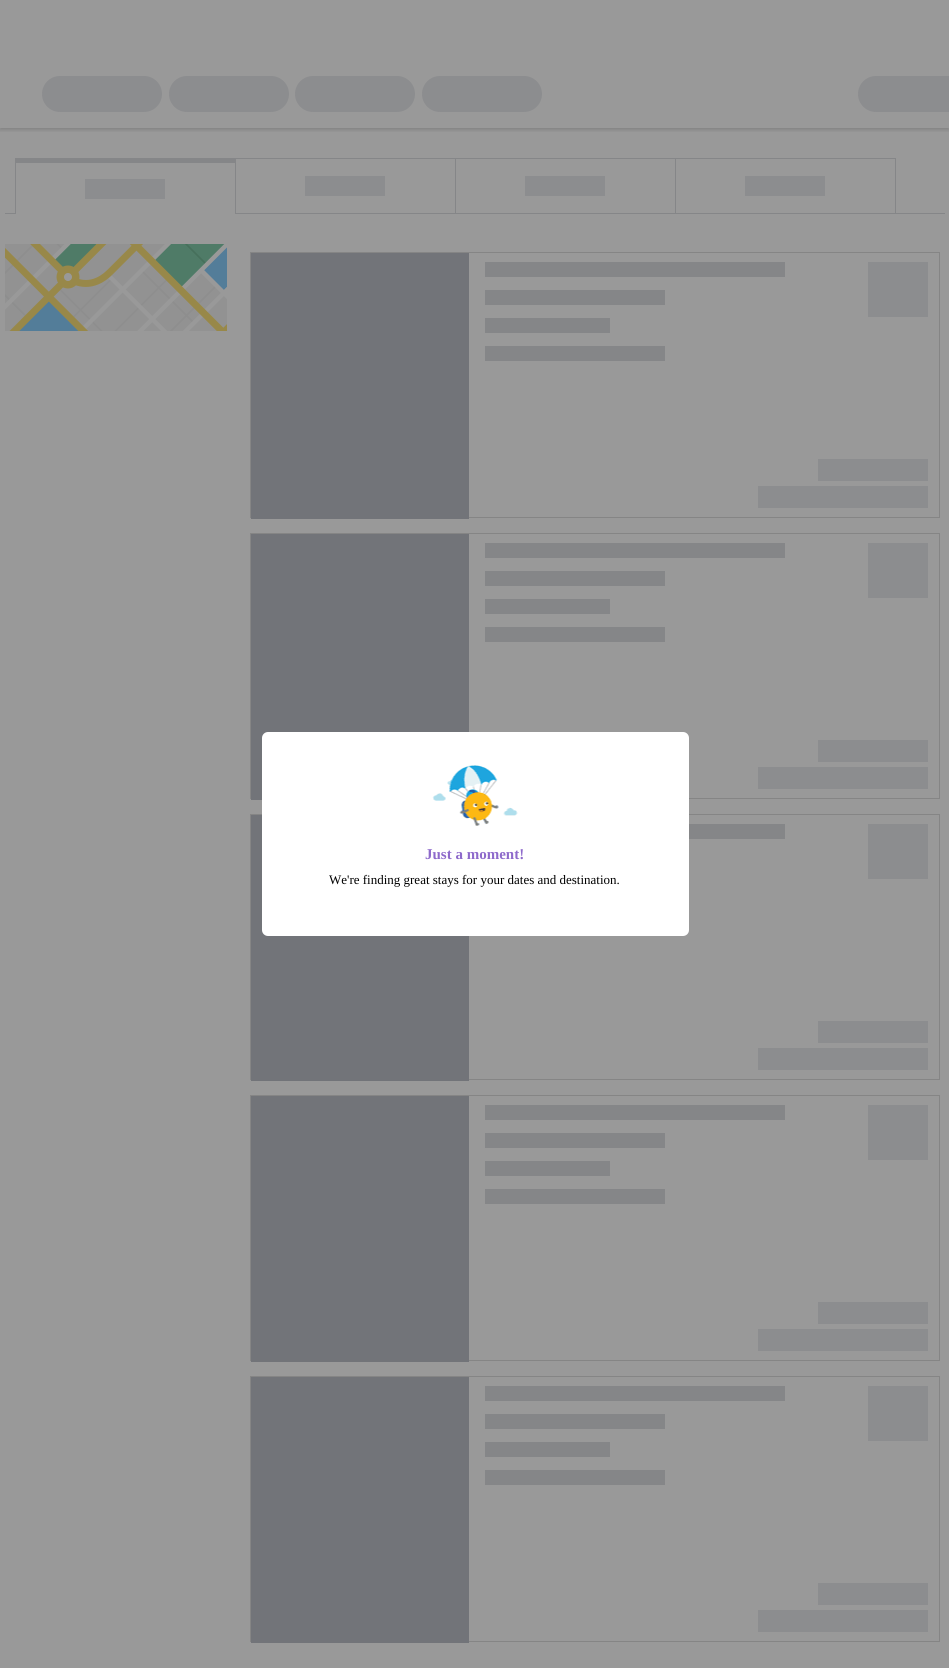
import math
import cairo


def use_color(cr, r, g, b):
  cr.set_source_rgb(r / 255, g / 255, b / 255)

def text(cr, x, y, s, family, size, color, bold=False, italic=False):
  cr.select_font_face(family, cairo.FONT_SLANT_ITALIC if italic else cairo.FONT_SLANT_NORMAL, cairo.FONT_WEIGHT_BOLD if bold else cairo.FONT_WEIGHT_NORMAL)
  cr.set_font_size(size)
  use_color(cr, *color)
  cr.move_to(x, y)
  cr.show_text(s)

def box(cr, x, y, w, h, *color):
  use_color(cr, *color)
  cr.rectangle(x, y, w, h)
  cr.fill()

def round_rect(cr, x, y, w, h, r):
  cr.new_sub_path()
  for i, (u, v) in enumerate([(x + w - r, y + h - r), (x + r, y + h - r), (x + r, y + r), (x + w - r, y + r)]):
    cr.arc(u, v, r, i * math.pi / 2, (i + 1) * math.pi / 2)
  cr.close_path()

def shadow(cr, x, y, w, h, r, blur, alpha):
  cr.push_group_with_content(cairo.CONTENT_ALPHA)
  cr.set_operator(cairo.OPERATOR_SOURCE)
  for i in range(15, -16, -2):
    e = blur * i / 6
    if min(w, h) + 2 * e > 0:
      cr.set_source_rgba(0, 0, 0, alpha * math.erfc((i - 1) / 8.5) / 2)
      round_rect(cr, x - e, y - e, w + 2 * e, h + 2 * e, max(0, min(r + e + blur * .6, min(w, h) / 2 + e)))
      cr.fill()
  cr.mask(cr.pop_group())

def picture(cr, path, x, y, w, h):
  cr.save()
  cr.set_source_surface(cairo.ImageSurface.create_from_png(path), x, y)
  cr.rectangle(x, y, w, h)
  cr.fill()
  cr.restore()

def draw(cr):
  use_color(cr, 153, 153, 153)
  cr.paint()
  cr.save()
  cr.rectangle(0, 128, 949, 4)
  cr.clip()
  use_color(cr, 0, 0, 0)
  shadow(cr, 0, 62, 949, 68, 0, 2, 0.15)
  cr.restore()
  use_color(cr, 140, 141, 143)
  round_rect(cr, 42, 76, 120, 36, 18)
  cr.fill()
  round_rect(cr, 169, 76, 120, 36, 18)
  cr.fill()
  round_rect(cr, 295, 76, 120, 36, 18)
  cr.fill()
  round_rect(cr, 422, 76, 120, 36, 18)
  cr.fill()
  round_rect(cr, 858, 76, 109, 36, 18)
  cr.fill()
  box(cr, 15, 158, 220, 5, 133, 134, 136)
  box(cr, 15, 158, 1, 56, 133, 134, 136)
  box(cr, 85, 179, 80, 20, 140, 141, 143)
  box(cr, 235, 158, 660, 1, 133, 134, 136)
  box(cr, 235, 213, 710, 1, 133, 134, 136)
  box(cr, 235, 158, 1, 56, 133, 134, 136)
  box(cr, 305, 176, 80, 20, 140, 141, 143)
  box(cr, 5, 213, 10, 1, 133, 134, 136)
  box(cr, 455, 158, 1, 56, 133, 134, 136)
  box(cr, 525, 176, 80, 20, 140, 141, 143)
  box(cr, 675, 158, 1, 56, 133, 134, 136)
  box(cr, 745, 176, 80, 20, 140, 141, 143)
  box(cr, 895, 158, 1, 56, 133, 134, 136)
  picture(cr, "img_01.png", 5, 244, 222, 87)
  cr.rectangle(250.5, 252.5, 689, 265)
  use_color(cr, 133, 133, 133)
  cr.set_line_width(1)
  cr.stroke()
  box(cr, 251, 253, 218, 266, 114, 116, 121)
  box(cr, 485, 262, 300, 15, 133, 134, 136)
  box(cr, 485, 290, 180, 15, 133, 134, 136)
  box(cr, 485, 318, 125, 15, 133, 134, 136)
  box(cr, 485, 346, 180, 15, 133, 134, 136)
  box(cr, 868, 262, 60, 55, 140, 141, 143)
  box(cr, 818, 459, 110, 22, 140, 141, 143)
  box(cr, 758, 486, 170, 22, 140, 141, 143)
  cr.rectangle(250.5, 533.5, 689, 265)
  use_color(cr, 133, 133, 133)
  cr.stroke()
  box(cr, 251, 534, 218, 266, 114, 116, 121)
  box(cr, 485, 543, 300, 15, 133, 134, 136)
  box(cr, 485, 571, 180, 15, 133, 134, 136)
  box(cr, 485, 599, 125, 15, 133, 134, 136)
  box(cr, 485, 627, 180, 15, 133, 134, 136)
  box(cr, 868, 543, 60, 55, 140, 141, 143)
  box(cr, 818, 740, 110, 22, 140, 141, 143)
  box(cr, 758, 767, 170, 22, 140, 141, 143)
  cr.rectangle(250.5, 814.5, 689, 265)
  use_color(cr, 133, 133, 133)
  cr.stroke()
  box(cr, 251, 815, 218, 266, 114, 116, 121)
  box(cr, 689, 824, 96, 15, 133, 134, 136)
  box(cr, 868, 824, 60, 55, 140, 141, 143)
  box(cr, 818, 1021, 110, 22, 140, 141, 143)
  box(cr, 758, 1048, 170, 22, 140, 141, 143)
  cr.rectangle(250.5, 1095.5, 689, 265)
  use_color(cr, 133, 133, 133)
  cr.stroke()
  box(cr, 251, 1096, 218, 266, 114, 116, 121)
  box(cr, 485, 1105, 300, 15, 133, 134, 136)
  box(cr, 485, 1133, 180, 15, 133, 134, 136)
  box(cr, 485, 1161, 125, 15, 133, 134, 136)
  box(cr, 485, 1189, 180, 15, 133, 134, 136)
  box(cr, 868, 1105, 60, 55, 140, 141, 143)
  box(cr, 818, 1302, 110, 22, 140, 141, 143)
  box(cr, 758, 1329, 170, 22, 140, 141, 143)
  cr.rectangle(250.5, 1376.5, 689, 265)
  use_color(cr, 133, 133, 133)
  cr.stroke()
  box(cr, 251, 1377, 218, 266, 114, 116, 121)
  box(cr, 485, 1386, 300, 15, 133, 134, 136)
  box(cr, 485, 1414, 180, 15, 133, 134, 136)
  box(cr, 485, 1442, 125, 15, 133, 134, 136)
  box(cr, 485, 1470, 180, 15, 133, 134, 136)
  box(cr, 868, 1386, 60, 55, 140, 141, 143)
  box(cr, 818, 1583, 110, 22, 140, 141, 143)
  box(cr, 758, 1610, 170, 22, 140, 141, 143)
  use_color(cr, 255, 255, 255)
  round_rect(cr, 262, 732, 427, 204, 6)
  cr.fill()
  picture(cr, "img_02.png", 432, 765, 86, 61)
  text(cr, 425, 859, "Just a moment!", "Liberation Serif", 15, (142, 106, 203), bold=True)
  text(cr, 329, 884, "We're finding great stays for your dates and destination.", "Liberation Serif", 13, (0, 0, 0))


surface = cairo.ImageSurface(cairo.FORMAT_RGB24, 949, 1668)
cr = cairo.Context(surface)
options = cairo.FontOptions()
options.set_hint_metrics(cairo.HINT_METRICS_OFF)
options.set_hint_style(cairo.HINT_STYLE_NONE)
cr.set_font_options(options)
cr.set_miter_limit(4)
draw(cr)
surface.write_to_png("out.png")
